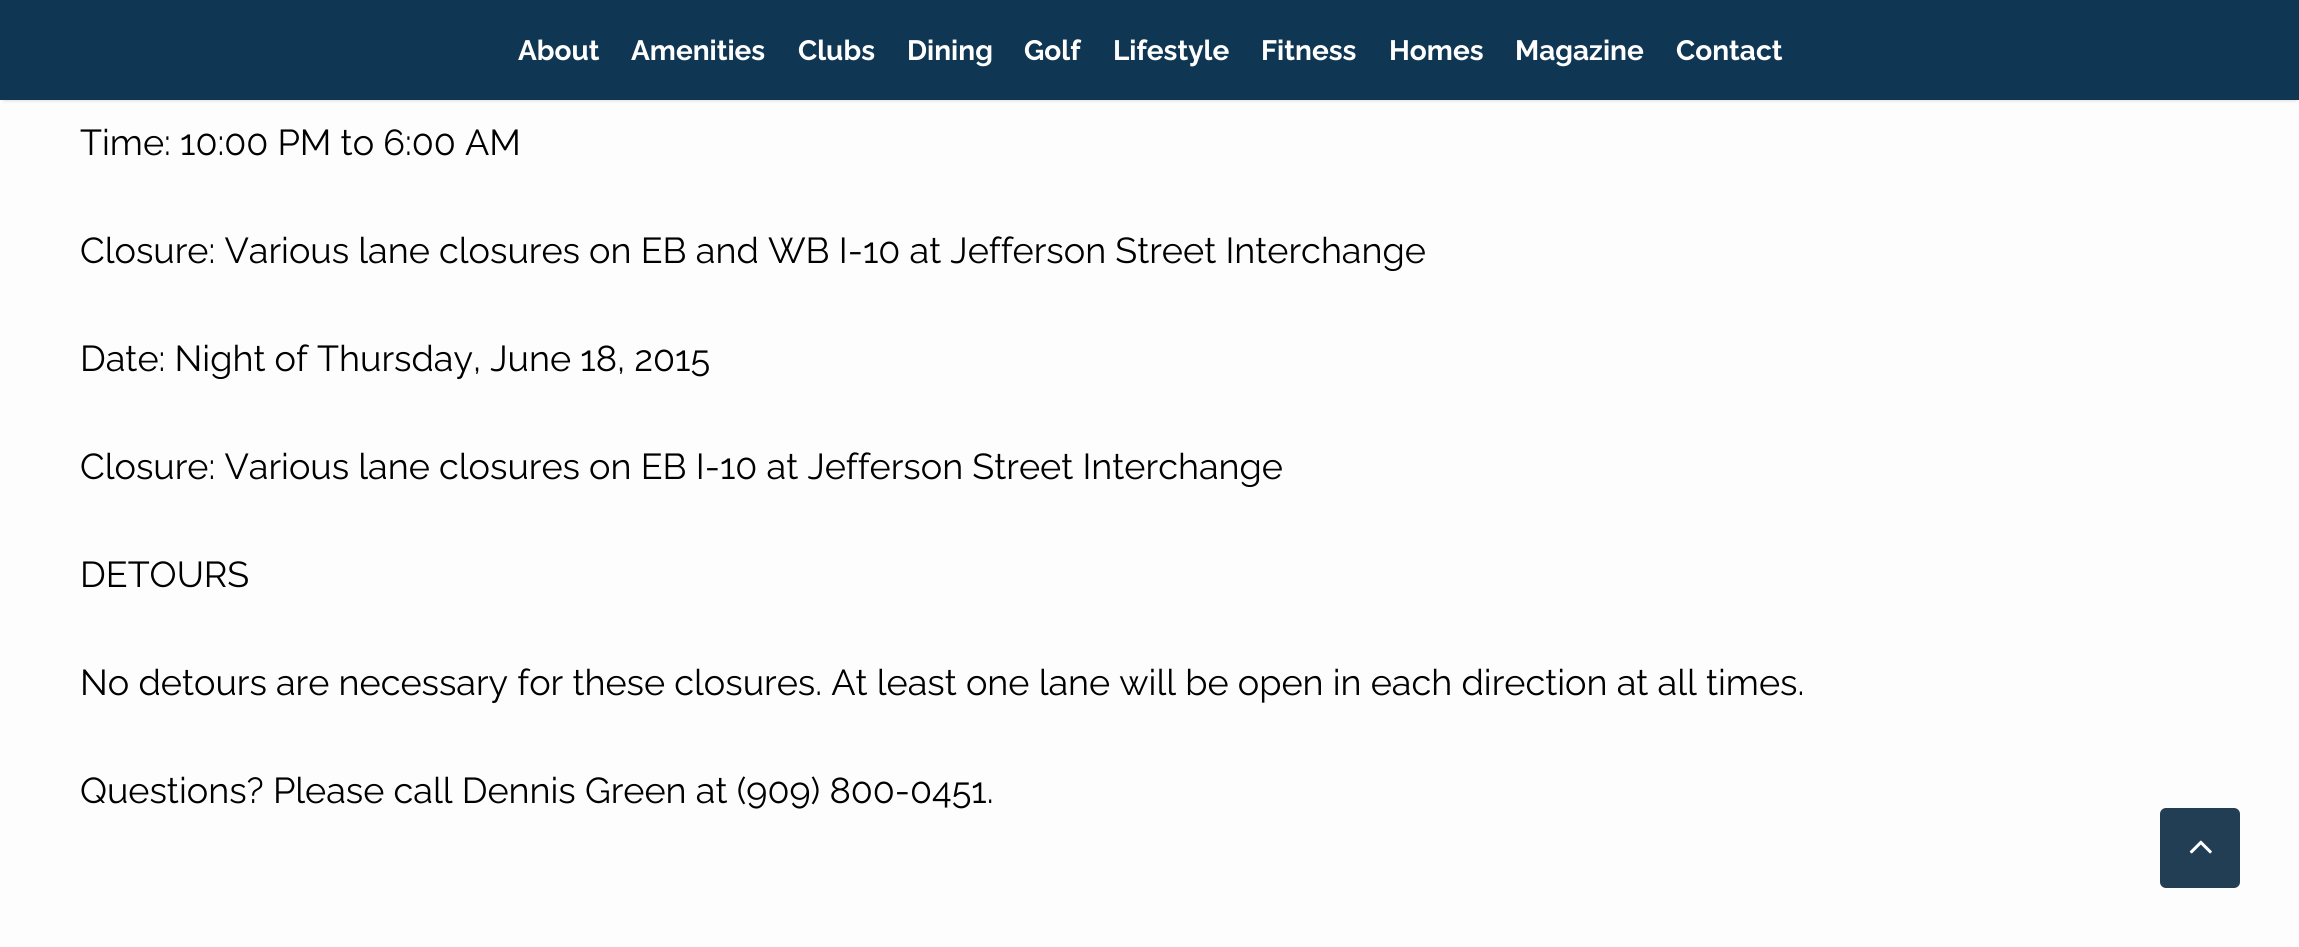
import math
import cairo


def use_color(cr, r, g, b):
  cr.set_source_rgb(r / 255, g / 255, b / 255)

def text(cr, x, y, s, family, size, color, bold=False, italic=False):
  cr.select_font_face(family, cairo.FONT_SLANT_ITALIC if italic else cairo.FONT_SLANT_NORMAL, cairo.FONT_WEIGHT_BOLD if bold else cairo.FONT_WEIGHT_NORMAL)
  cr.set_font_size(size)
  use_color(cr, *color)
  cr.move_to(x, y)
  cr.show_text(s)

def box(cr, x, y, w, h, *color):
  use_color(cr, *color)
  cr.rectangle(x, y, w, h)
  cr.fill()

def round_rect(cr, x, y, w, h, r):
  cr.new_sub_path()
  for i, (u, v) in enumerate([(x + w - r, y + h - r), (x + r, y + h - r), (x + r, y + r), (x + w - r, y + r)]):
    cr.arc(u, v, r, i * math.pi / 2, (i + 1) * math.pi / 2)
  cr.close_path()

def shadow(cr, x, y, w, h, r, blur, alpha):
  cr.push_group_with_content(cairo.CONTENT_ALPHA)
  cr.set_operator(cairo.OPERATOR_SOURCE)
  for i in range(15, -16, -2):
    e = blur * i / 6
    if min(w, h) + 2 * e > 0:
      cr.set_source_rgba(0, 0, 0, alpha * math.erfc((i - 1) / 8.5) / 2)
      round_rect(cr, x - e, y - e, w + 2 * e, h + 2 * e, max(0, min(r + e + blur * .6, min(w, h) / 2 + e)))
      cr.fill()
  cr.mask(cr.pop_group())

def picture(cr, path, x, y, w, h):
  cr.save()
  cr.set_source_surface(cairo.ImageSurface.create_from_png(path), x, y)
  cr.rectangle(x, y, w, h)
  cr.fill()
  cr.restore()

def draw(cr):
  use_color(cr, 253, 253, 253)
  cr.paint()
  use_color(cr, 0, 0, 0)
  shadow(cr, 4, 8, 2292, 92, 0, 2, 0.2)
  box(cr, 0, 0, 2299, 100, 15, 54, 83)
  use_color(cr, 33, 62, 84)
  round_rect(cr, 2160, 808, 80, 80, 6)
  cr.fill()
  picture(cr, "img_01.png", 2189, 840, 23, 14)
  text(cr, 518, 60, "About", "Raleway", 28, (255, 255, 255), bold=True)
  text(cr, 631, 60, "Amenities", "Raleway", 28, (255, 255, 255), bold=True)
  text(cr, 798, 60, "Clubs", "Raleway", 28, (255, 255, 255), bold=True)
  text(cr, 907, 60, "Dining", "Raleway", 28, (255, 255, 255), bold=True)
  text(cr, 1024, 60, "Golf", "Raleway", 28, (255, 255, 255), bold=True)
  text(cr, 1113, 60, "Lifestyle", "Raleway", 28, (255, 255, 255), bold=True)
  text(cr, 1261, 60, "Fitness", "Raleway", 28, (255, 255, 255), bold=True)
  text(cr, 1389, 60, "Homes", "Raleway", 28, (255, 255, 255), bold=True)
  text(cr, 1515, 60, "Magazine", "Raleway", 28, (255, 255, 255), bold=True)
  text(cr, 1676, 60, "Contact", "Raleway", 28, (255, 255, 255), bold=True)
  text(cr, 80, 155, "Time: 10:00 PM to 6:00 AM", "Raleway", 36, (0, 0, 0))
  text(cr, 80, 263, "Closure: Various lane closures on EB and WB I-10 at Jefferson Street Interchange", "Raleway", 36, (0, 0, 0))
  text(cr, 80, 371, "Date: Night of Thursday, June 18, 2015", "Raleway", 36, (0, 0, 0))
  text(cr, 80, 479, "Closure: Various lane closures on EB I-10 at Jefferson Street Interchange", "Raleway", 36, (0, 0, 0))
  text(cr, 80, 587, "DETOURS", "Raleway", 36, (0, 0, 0))
  text(cr, 80, 695, "No detours are necessary for these closures. At least one lane will be open in each direction at all times.", "Raleway", 36, (0, 0, 0))
  text(cr, 80, 803, "Questions? Please call Dennis Green at (909) 800-0451.", "Raleway", 36, (0, 0, 0))


surface = cairo.ImageSurface(cairo.FORMAT_RGB24, 2299, 947)
cr = cairo.Context(surface)
options = cairo.FontOptions()
options.set_hint_metrics(cairo.HINT_METRICS_OFF)
options.set_hint_style(cairo.HINT_STYLE_NONE)
cr.set_font_options(options)
cr.set_miter_limit(4)
draw(cr)
surface.write_to_png("out.png")
